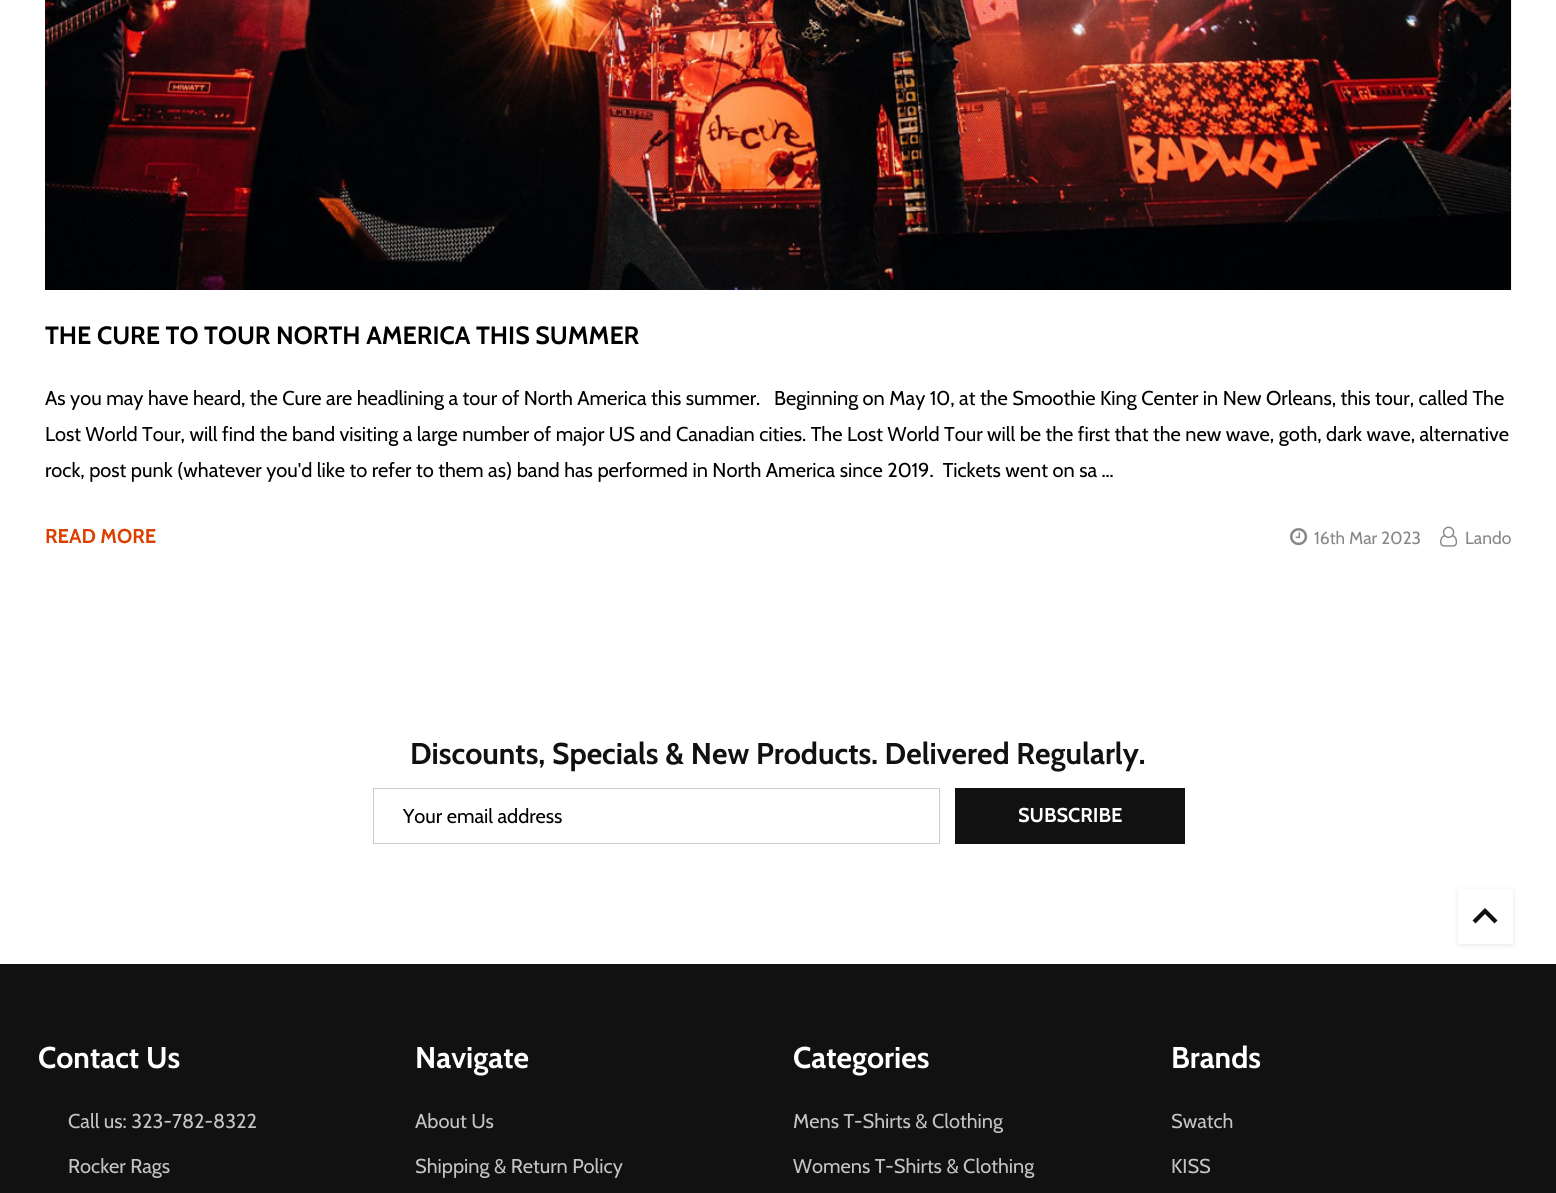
import math
import cairo


def use_color(cr, r, g, b):
  cr.set_source_rgb(r / 255, g / 255, b / 255)

def text(cr, x, y, s, family, size, color, bold=False, italic=False):
  cr.select_font_face(family, cairo.FONT_SLANT_ITALIC if italic else cairo.FONT_SLANT_NORMAL, cairo.FONT_WEIGHT_BOLD if bold else cairo.FONT_WEIGHT_NORMAL)
  cr.set_font_size(size)
  use_color(cr, *color)
  cr.move_to(x, y)
  cr.show_text(s)

def box(cr, x, y, w, h, *color):
  use_color(cr, *color)
  cr.rectangle(x, y, w, h)
  cr.fill()

def round_rect(cr, x, y, w, h, r):
  cr.new_sub_path()
  for i, (u, v) in enumerate([(x + w - r, y + h - r), (x + r, y + h - r), (x + r, y + r), (x + w - r, y + r)]):
    cr.arc(u, v, r, i * math.pi / 2, (i + 1) * math.pi / 2)
  cr.close_path()

def shadow(cr, x, y, w, h, r, blur, alpha):
  cr.push_group_with_content(cairo.CONTENT_ALPHA)
  cr.set_operator(cairo.OPERATOR_SOURCE)
  for i in range(15, -16, -2):
    e = blur * i / 6
    if min(w, h) + 2 * e > 0:
      cr.set_source_rgba(0, 0, 0, alpha * math.erfc((i - 1) / 8.5) / 2)
      round_rect(cr, x - e, y - e, w + 2 * e, h + 2 * e, max(0, min(r + e + blur * .6, min(w, h) / 2 + e)))
      cr.fill()
  cr.mask(cr.pop_group())

def picture(cr, path, x, y, w, h):
  cr.save()
  cr.set_source_surface(cairo.ImageSurface.create_from_png(path), x, y)
  cr.rectangle(x, y, w, h)
  cr.fill()
  cr.restore()

def draw(cr):
  use_color(cr, 255, 255, 255)
  cr.paint()
  picture(cr, "img_01.png", 45, 0, 1467, 290)
  picture(cr, "img_02.png", 1290, 528, 18, 18)
  picture(cr, "img_03.png", 1440, 526, 18, 21)
  cr.rectangle(373.5, 788.5, 566, 55)
  use_color(cr, 204, 204, 204)
  cr.set_line_width(1)
  cr.stroke()
  box(cr, 955, 788, 230, 56, 17, 17, 17)
  use_color(cr, 0, 0, 0)
  shadow(cr, 1458, 890, 55, 55, 0, 2.5, 0.1)
  box(cr, 1458, 889, 55, 55, 255, 255, 255)
  use_color(cr, 17, 17, 17)
  cr.new_path()
  cr.move_to(1475.5, 923.5)
  cr.line_to(1485, 914)
  cr.line_to(1494.5, 923.5)
  cr.line_to(1497.5, 920.5)
  cr.line_to(1485, 908)
  cr.line_to(1472.5, 920.5)
  cr.close_path()
  cr.fill()
  box(cr, 0, 964, 1556, 229, 17, 17, 17)
  text(cr, 45, 344, "THE CURE TO TOUR NORTH AMERICA THIS SUMMER", "Cabin", 25, (0, 0, 0), bold=True)
  text(cr, 45, 405, "As you may have heard, the Cure are headlining a tour of North America this summer.", "Cabin", 20, (0, 0, 0))
  text(cr, 774, 405, "Beginning on May 10, at the Smoothie King Center in New Orleans, this tour, called The", "Cabin", 20, (0, 0, 0))
  text(cr, 45, 441, "Lost World Tour, will find the band visiting a large number of major US and Canadian cities. The Lost World Tour will be the first that the new wave, goth, dark wave, alternative", "Cabin", 20, (0, 0, 0))
  text(cr, 45, 477, "rock, post punk (whatever you'd like to refer to them as) band has performed in North America since 2019.  Tickets went on sa …", "Cabin", 20, (0, 0, 0))
  text(cr, 45, 543, "READ MORE", "Cabin", 20, (218, 65, 0), bold=True)
  text(cr, 1314, 544, "16th Mar 2023", "Cabin", 17.5, (135, 135, 135))
  text(cr, 1465, 544, "Lando", "Cabin", 17.5, (135, 135, 135))
  text(cr, 410, 764, "Discounts, Specials & New Products. Delivered Regularly.", "Cabin", 30, (17, 17, 17), bold=True)
  text(cr, 403, 823, "Your email address", "Cabin", 20, (0, 0, 0))
  text(cr, 1018, 822, "SUBSCRIBE", "Cabin", 20, (255, 255, 255), bold=True)
  text(cr, 38, 1068, "Contact Us", "Cabin", 30, (255, 255, 255), bold=True)
  text(cr, 68, 1128, "Call us: 323-782-8322", "Cabin", 20, (196, 196, 196))
  text(cr, 68, 1173, "Rocker Rags", "Cabin", 20, (196, 196, 196))
  text(cr, 415, 1068, "Navigate", "Cabin", 30, (255, 255, 255), bold=True)
  text(cr, 415, 1128, "About Us", "Cabin", 20, (196, 196, 196))
  text(cr, 415, 1173, "Shipping & Return Policy", "Cabin", 20, (196, 196, 196))
  text(cr, 793, 1068, "Categories", "Cabin", 30, (255, 255, 255), bold=True)
  text(cr, 793, 1128, "Mens T-Shirts & Clothing", "Cabin", 20, (196, 196, 196))
  text(cr, 793, 1173, "Womens T-Shirts & Clothing", "Cabin", 20, (196, 196, 196))
  text(cr, 1171, 1068, "Brands", "Cabin", 30, (255, 255, 255), bold=True)
  text(cr, 1171, 1128, "Swatch", "Cabin", 20, (196, 196, 196))
  text(cr, 1171, 1173, "KISS", "Cabin", 20, (196, 196, 196))


surface = cairo.ImageSurface(cairo.FORMAT_RGB24, 1556, 1193)
cr = cairo.Context(surface)
options = cairo.FontOptions()
options.set_hint_metrics(cairo.HINT_METRICS_OFF)
options.set_hint_style(cairo.HINT_STYLE_NONE)
cr.set_font_options(options)
cr.set_miter_limit(4)
draw(cr)
surface.write_to_png("out.png")
